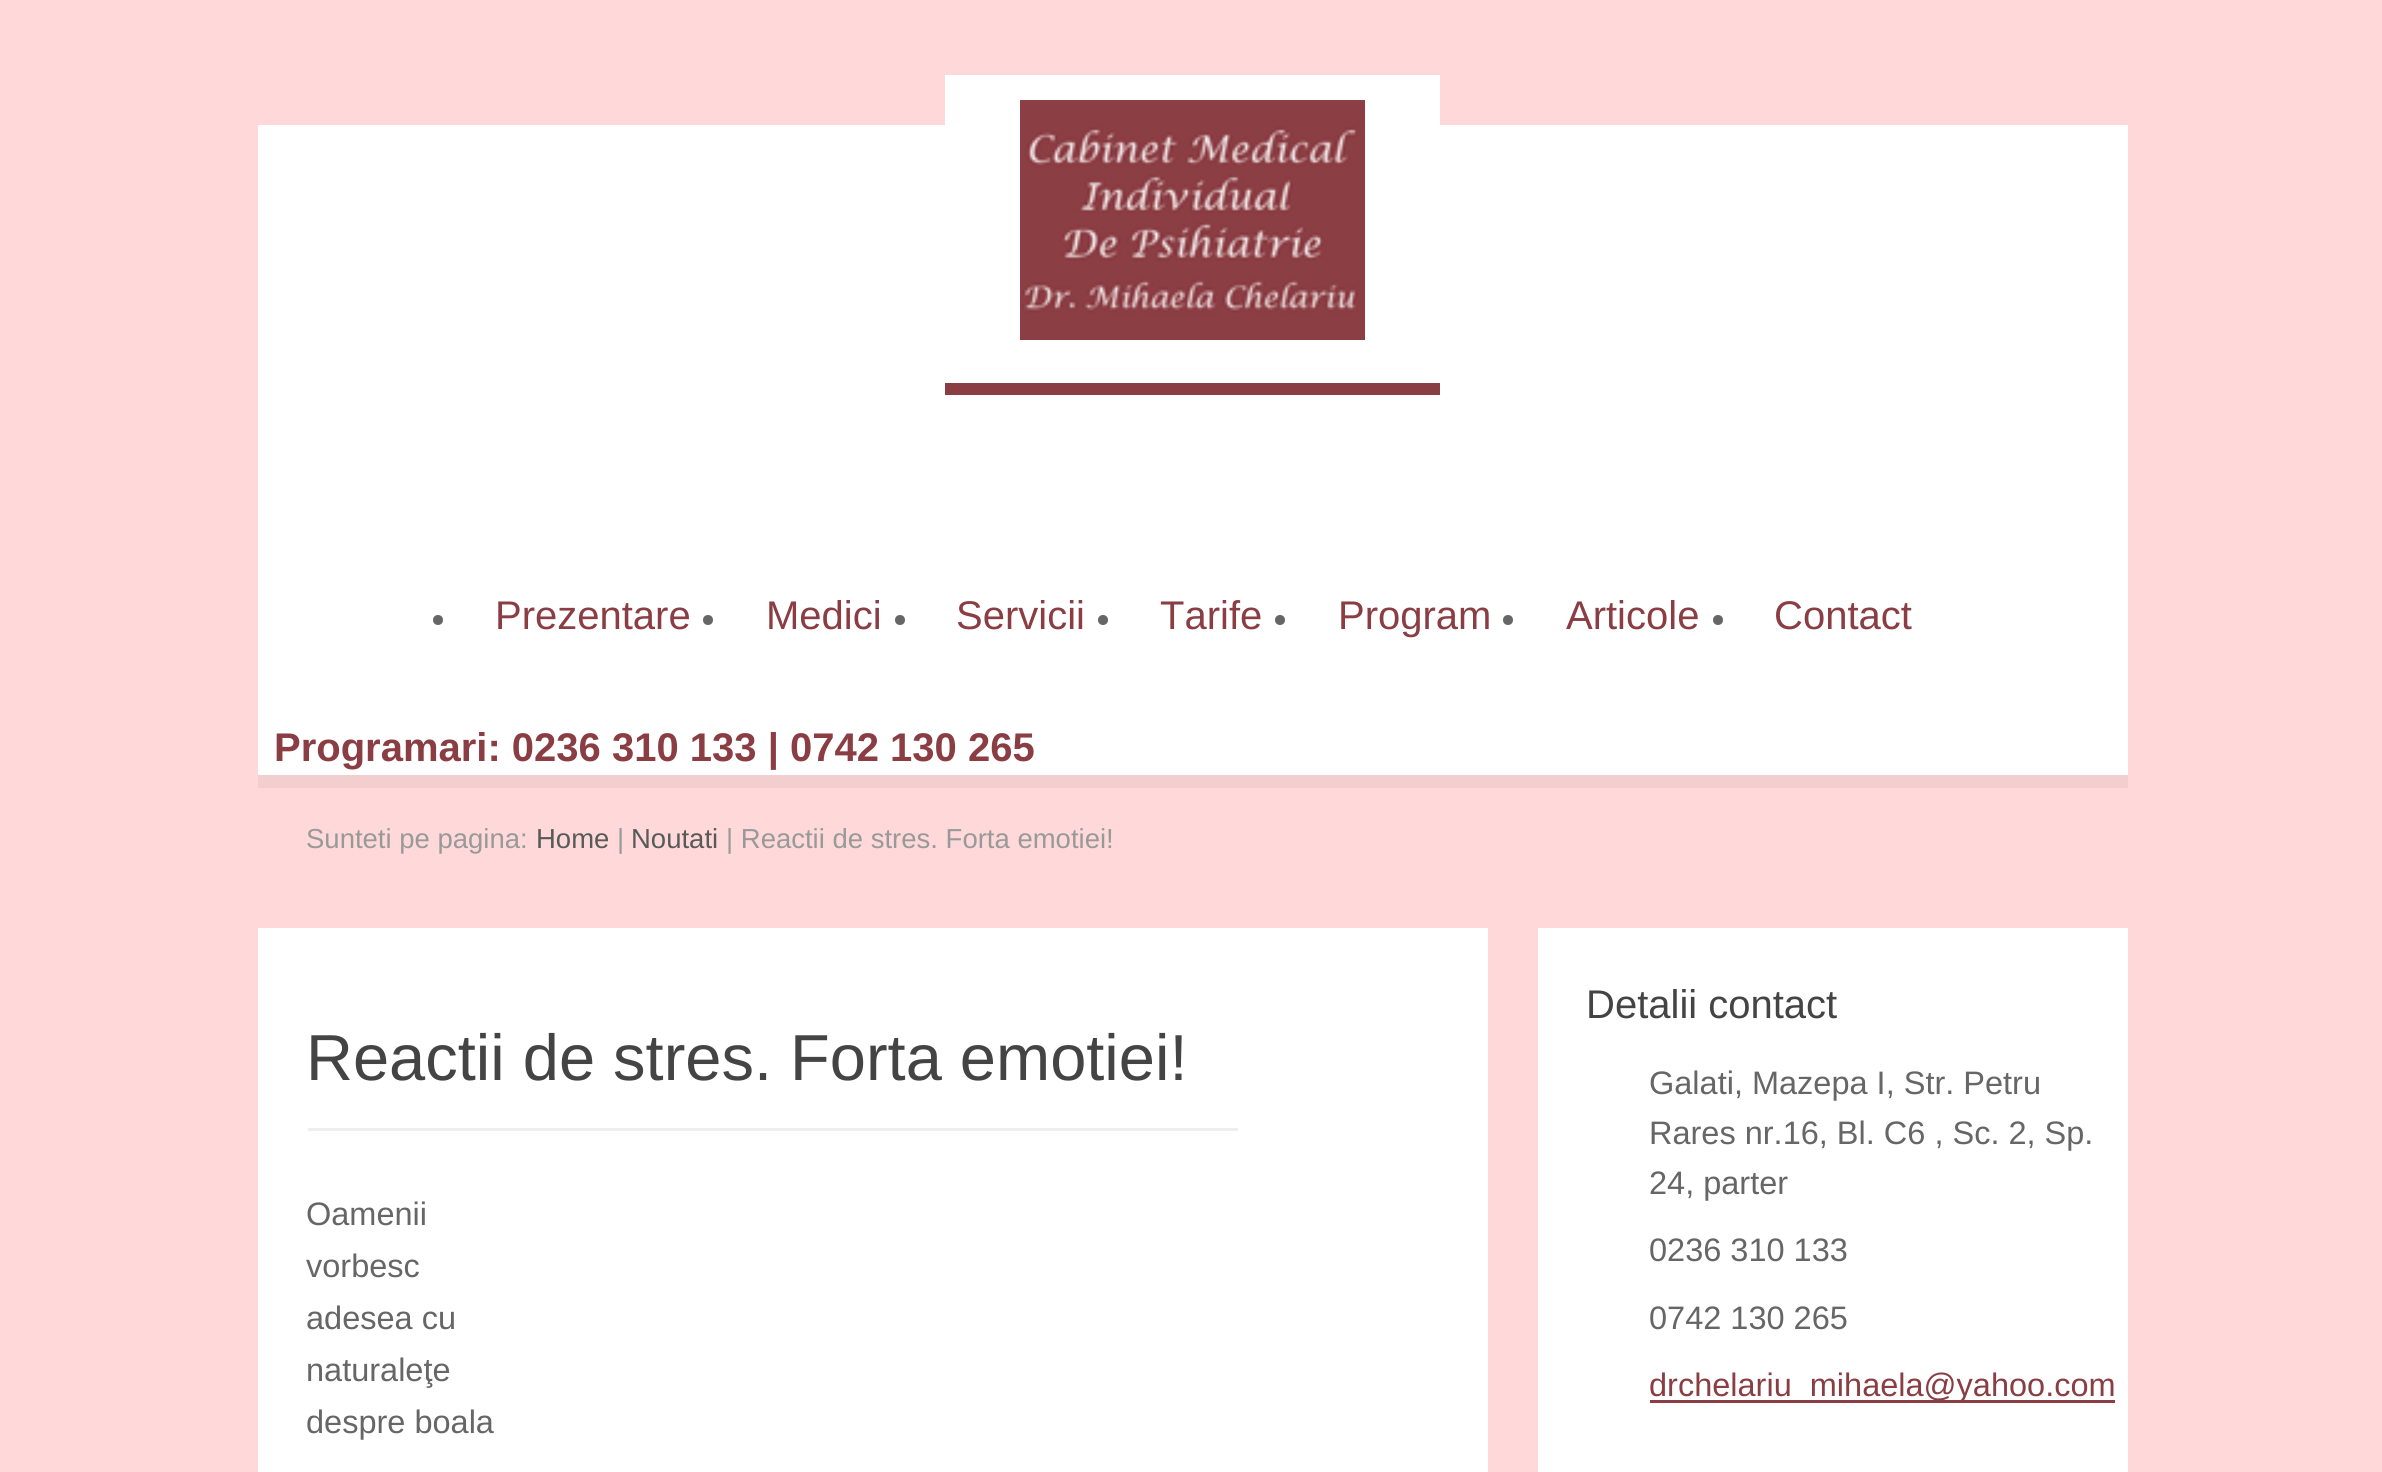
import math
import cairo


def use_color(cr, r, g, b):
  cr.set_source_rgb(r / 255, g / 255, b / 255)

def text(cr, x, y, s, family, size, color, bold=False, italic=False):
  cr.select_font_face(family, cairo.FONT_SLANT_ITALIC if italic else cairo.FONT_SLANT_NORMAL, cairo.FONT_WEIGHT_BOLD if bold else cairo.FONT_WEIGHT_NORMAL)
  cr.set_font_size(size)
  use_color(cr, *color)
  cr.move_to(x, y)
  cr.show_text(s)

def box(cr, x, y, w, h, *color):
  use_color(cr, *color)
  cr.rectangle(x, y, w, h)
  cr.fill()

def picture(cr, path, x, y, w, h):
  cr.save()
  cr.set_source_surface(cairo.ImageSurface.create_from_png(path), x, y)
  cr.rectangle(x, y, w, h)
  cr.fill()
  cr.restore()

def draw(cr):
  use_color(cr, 255, 217, 217)
  cr.paint()
  box(cr, 258, 125, 1870, 650, 255, 255, 255)
  box(cr, 945, 383, 495, 12, 138, 61, 67)
  box(cr, 945, 75, 495, 50, 255, 255, 255)
  picture(cr, "img_01.png", 1020, 100, 345, 240)
  use_color(cr, 102, 102, 102)
  cr.arc(438, 620, 5, 0, 2 * math.pi)
  cr.fill()
  cr.arc(708, 620, 5, 0, 2 * math.pi)
  cr.fill()
  cr.arc(900, 620, 5, 0, 2 * math.pi)
  cr.fill()
  cr.arc(1103, 620, 5, 0, 2 * math.pi)
  cr.fill()
  cr.arc(1280, 620, 5, 0, 2 * math.pi)
  cr.fill()
  cr.arc(1508, 620, 5, 0, 2 * math.pi)
  cr.fill()
  cr.arc(1718, 620, 5, 0, 2 * math.pi)
  cr.fill()
  box(cr, 258, 775, 1870, 13, 242, 206, 206)
  box(cr, 258, 928, 1230, 544, 255, 255, 255)
  box(cr, 308, 1128, 930, 3, 238, 238, 238)
  box(cr, 1538, 928, 590, 544, 255, 255, 255)
  box(cr, 1650, 1400, 465, 3, 138, 61, 67)
  text(cr, 495, 629, "Prezentare", "Liberation Sans", 40, (138, 61, 67))
  text(cr, 766, 629, "Medici", "Liberation Sans", 40, (138, 61, 67))
  text(cr, 956, 629, "Servicii", "Liberation Sans", 40, (138, 61, 67))
  text(cr, 1160, 629, "Tarife", "Liberation Sans", 40, (138, 61, 67))
  text(cr, 1338, 629, "Program", "Liberation Sans", 40, (138, 61, 67))
  text(cr, 1566, 629, "Articole", "Liberation Sans", 40, (138, 61, 67))
  text(cr, 1774, 629, "Contact", "Liberation Sans", 40, (138, 61, 67))
  text(cr, 274, 761, "Programari: 0236 310 133 | 0742 130 265", "Liberation Sans", 40, (138, 61, 67), bold=True)
  text(cr, 306, 848, "Sunteti pe pagina:", "Liberation Sans", 27.5, (153, 153, 153))
  text(cr, 536, 848, "Home", "Liberation Sans", 27.5, (89, 89, 89))
  text(cr, 617, 848, "|", "Liberation Sans", 27.5, (153, 153, 153))
  text(cr, 631, 848, "Noutati", "Liberation Sans", 27.5, (89, 89, 89))
  text(cr, 726, 848, "| Reactii de stres. Forta emotiei!", "Liberation Sans", 27.5, (153, 153, 153))
  text(cr, 306, 1080, "Reactii de stres. Forta emotiei!", "Liberation Sans", 65, (68, 68, 68))
  text(cr, 306, 1225, "Oamenii", "Liberation Sans", 32.5, (102, 102, 102))
  text(cr, 306, 1277, "vorbesc", "Liberation Sans", 32.5, (102, 102, 102))
  text(cr, 306, 1329, "adesea cu", "Liberation Sans", 32.5, (102, 102, 102))
  text(cr, 306, 1381, "naturaleţe", "Liberation Sans", 32.5, (102, 102, 102))
  text(cr, 306, 1433, "despre boala", "Liberation Sans", 32.5, (102, 102, 102))
  text(cr, 1586, 1018, "Detalii contact", "Liberation Sans", 40, (68, 68, 68))
  text(cr, 1649, 1094, "Galati, Mazepa I, Str. Petru", "Liberation Sans", 32.5, (102, 102, 102))
  text(cr, 1649, 1144, "Rares nr.16, Bl. C6 , Sc. 2, Sp.", "Liberation Sans", 32.5, (102, 102, 102))
  text(cr, 1649, 1194, "24, parter", "Liberation Sans", 32.5, (102, 102, 102))
  text(cr, 1649, 1261, "0236 310 133", "Liberation Sans", 32.5, (102, 102, 102))
  text(cr, 1649, 1329, "0742 130 265", "Liberation Sans", 32.5, (102, 102, 102))
  text(cr, 1649, 1396, "drchelariu_mihaela@yahoo.com", "Liberation Sans", 32.5, (138, 61, 67))


surface = cairo.ImageSurface(cairo.FORMAT_RGB24, 2382, 1472)
cr = cairo.Context(surface)
options = cairo.FontOptions()
options.set_hint_metrics(cairo.HINT_METRICS_OFF)
options.set_hint_style(cairo.HINT_STYLE_NONE)
cr.set_font_options(options)
cr.set_miter_limit(4)
draw(cr)
surface.write_to_png("out.png")
